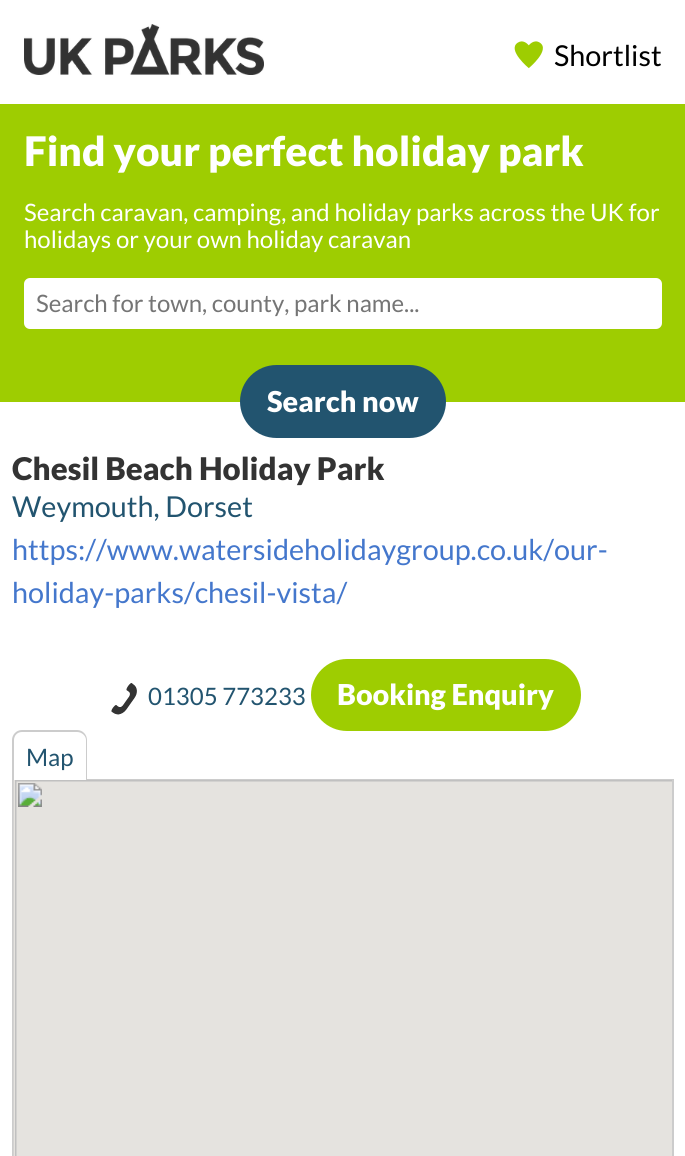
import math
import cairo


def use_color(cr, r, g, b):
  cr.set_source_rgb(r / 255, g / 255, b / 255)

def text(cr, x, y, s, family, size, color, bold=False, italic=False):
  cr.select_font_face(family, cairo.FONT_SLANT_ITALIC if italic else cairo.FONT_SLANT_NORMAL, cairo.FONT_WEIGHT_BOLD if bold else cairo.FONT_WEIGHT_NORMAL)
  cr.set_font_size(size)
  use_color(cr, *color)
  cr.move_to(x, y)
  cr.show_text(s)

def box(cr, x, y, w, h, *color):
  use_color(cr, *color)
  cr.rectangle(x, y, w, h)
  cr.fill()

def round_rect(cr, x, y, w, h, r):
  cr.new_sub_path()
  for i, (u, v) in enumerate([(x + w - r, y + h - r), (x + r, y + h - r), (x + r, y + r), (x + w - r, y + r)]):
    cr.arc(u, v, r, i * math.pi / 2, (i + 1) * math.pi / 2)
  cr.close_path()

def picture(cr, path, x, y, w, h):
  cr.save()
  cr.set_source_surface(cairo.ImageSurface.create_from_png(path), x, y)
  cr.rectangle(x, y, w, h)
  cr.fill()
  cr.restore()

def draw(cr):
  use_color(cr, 255, 255, 255)
  cr.paint()
  picture(cr, "img_01.png", 24, 24, 240, 51)
  picture(cr, "img_02.png", 514, 41, 29, 28)
  box(cr, 0, 104, 685, 298, 158, 205, 1)
  use_color(cr, 255, 255, 255)
  round_rect(cr, 24, 278, 638, 51, 6)
  cr.fill()
  use_color(cr, 34, 84, 111)
  round_rect(cr, 240, 365, 206, 73, 36.5)
  cr.fill()
  picture(cr, "img_03.png", 111, 683, 26, 32)
  use_color(cr, 158, 205, 1)
  round_rect(cr, 311, 659, 270, 72, 36)
  cr.fill()
  cr.rectangle(13, 780, 660, 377)
  use_color(cr, 204, 204, 204)
  cr.stroke()
  use_color(cr, 255, 255, 255)
  cr.new_path()
  cr.move_to(21, 731)
  cr.line_to(78, 731)
  cr.curve_to(83, 731, 87, 735, 87, 740)
  cr.line_to(87, 780)
  cr.line_to(12, 780)
  cr.line_to(12, 740)
  cr.curve_to(12, 735, 16, 731, 21, 731)
  cr.close_path()
  cr.fill()
  use_color(cr, 204, 204, 204)
  cr.set_fill_rule(cairo.FILL_RULE_EVEN_ODD)
  cr.new_path()
  cr.move_to(22, 730)
  cr.line_to(77, 730)
  cr.curve_to(83, 730, 87, 735, 87, 740)
  cr.line_to(87, 780)
  cr.line_to(12, 780)
  cr.line_to(12, 740)
  cr.curve_to(12, 735, 16, 730, 22, 730)
  cr.close_path()
  cr.move_to(22, 732)
  cr.line_to(77, 732)
  cr.curve_to(82, 732, 86, 736, 86, 740)
  cr.line_to(86, 780)
  cr.line_to(14, 780)
  cr.line_to(14, 740)
  cr.curve_to(14, 736, 17, 732, 22, 732)
  cr.close_path()
  cr.fill()
  picture(cr, "img_04.png", 13, 780, 659, 376)
  text(cr, 554, 66, "Shortlist", "Lato", 28.8, (0, 0, 0))
  text(cr, 24, 166, "Find your perfect holiday park", "Lato Black", 40.75, (255, 255, 255))
  text(cr, 24, 221, "Search caravan, camping, and holiday parks across the UK for", "Lato", 24, (255, 255, 255))
  text(cr, 24, 248, "holidays or your own holiday caravan", "Lato", 24, (255, 255, 255))
  text(cr, 36, 312, "Search for town, county, park name...", "Lato", 24, (117, 117, 117))
  text(cr, 267, 412, "Search now", "Lato Black", 28.8, (255, 255, 255))
  text(cr, 12, 480, "Chesil Beach Holiday Park", "Lato Black", 31.25, (51, 51, 51))
  text(cr, 12, 517, "Weymouth, Dorset", "Lato", 28.8, (34, 84, 111))
  text(cr, 12, 560, "https://www.watersideholidaygroup.co.uk/our-", "Lato", 28.8, (68, 119, 204))
  text(cr, 12, 603, "holiday-parks/chesil-vista/", "Lato", 28.8, (68, 119, 204))
  text(cr, 148, 705, "01305 773233", "Lato", 24, (34, 84, 111))
  text(cr, 337, 705, "Booking Enquiry", "Lato Black", 28.8, (255, 255, 255))
  text(cr, 26, 766, "Map", "Lato", 24, (34, 84, 111))


surface = cairo.ImageSurface(cairo.FORMAT_RGB24, 685, 1156)
cr = cairo.Context(surface)
options = cairo.FontOptions()
options.set_hint_metrics(cairo.HINT_METRICS_OFF)
options.set_hint_style(cairo.HINT_STYLE_NONE)
cr.set_font_options(options)
cr.set_miter_limit(4)
draw(cr)
surface.write_to_png("out.png")
